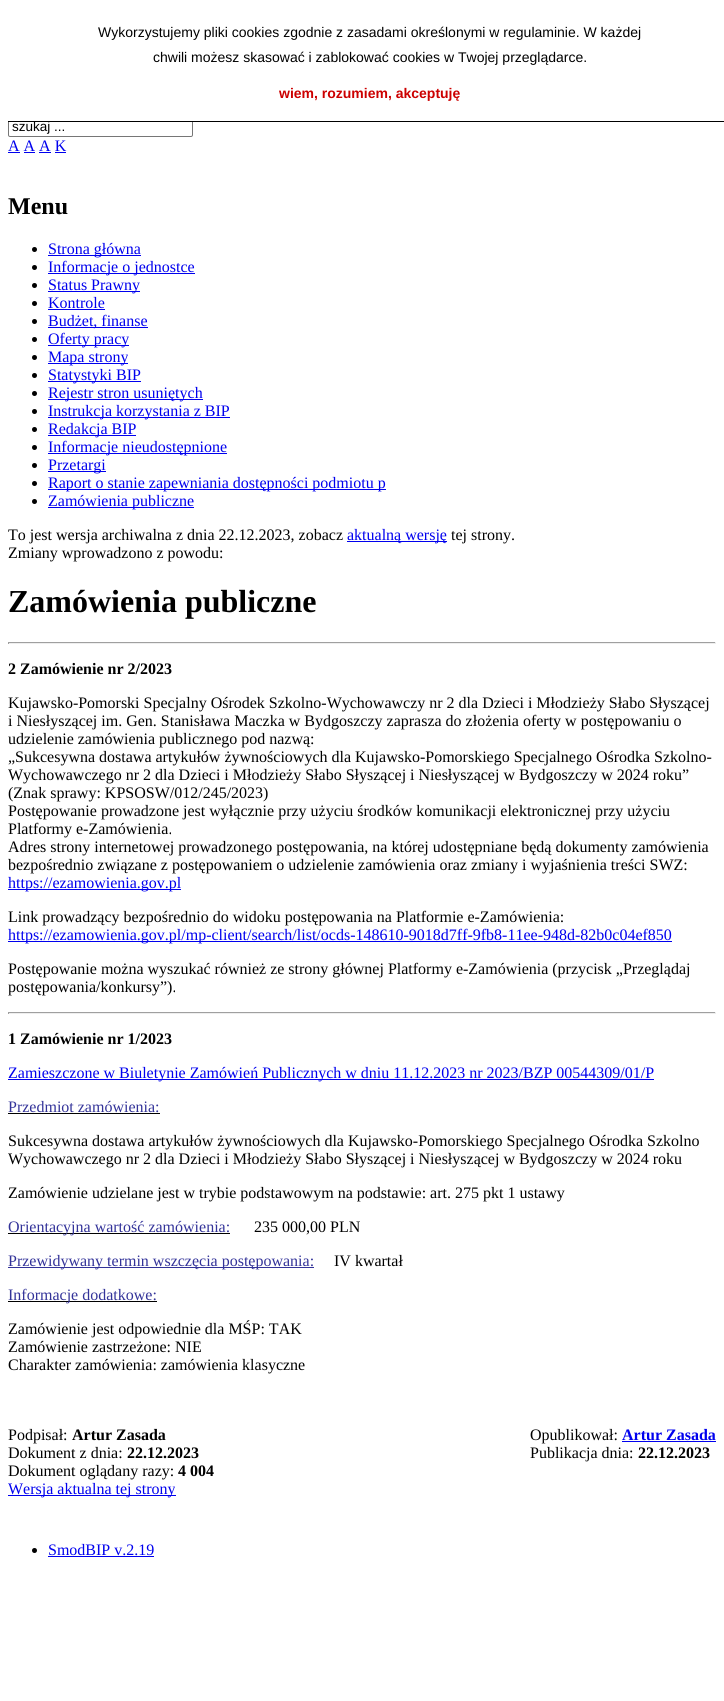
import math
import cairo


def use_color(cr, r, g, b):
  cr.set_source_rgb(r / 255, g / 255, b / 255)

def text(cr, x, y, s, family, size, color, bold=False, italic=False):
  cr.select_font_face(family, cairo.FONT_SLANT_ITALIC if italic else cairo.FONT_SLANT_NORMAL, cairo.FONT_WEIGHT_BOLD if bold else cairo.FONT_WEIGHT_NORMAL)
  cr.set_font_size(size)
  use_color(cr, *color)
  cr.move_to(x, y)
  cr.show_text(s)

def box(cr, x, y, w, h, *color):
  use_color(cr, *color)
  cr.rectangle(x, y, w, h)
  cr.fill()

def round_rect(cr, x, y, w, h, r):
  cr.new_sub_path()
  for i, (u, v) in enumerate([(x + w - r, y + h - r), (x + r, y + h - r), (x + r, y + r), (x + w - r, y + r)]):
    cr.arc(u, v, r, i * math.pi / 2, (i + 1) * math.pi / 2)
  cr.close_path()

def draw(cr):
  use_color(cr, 255, 255, 255)
  cr.paint()
  round_rect(cr, 8.5, 116.5, 184, 20, 1.5)
  use_color(cr, 118, 118, 118)
  cr.set_line_width(1)
  cr.stroke()
  box(cr, 8, 116, 185, 5, 255, 255, 255)
  box(cr, 8, 121, 716, 1, 0, 0, 0)
  box(cr, 8, 152, 12, 1, 0, 0, 238)
  box(cr, 24, 152, 11, 1, 0, 0, 238)
  box(cr, 39, 152, 12, 1, 0, 0, 238)
  box(cr, 55, 152, 11, 1, 0, 0, 238)
  use_color(cr, 0, 0, 0)
  cr.arc(34.5, 249.5, 2.5, 0, 2 * math.pi)
  cr.fill()
  box(cr, 48, 255, 93, 1, 0, 0, 238)
  use_color(cr, 0, 0, 0)
  cr.arc(34.5, 267.5, 2.5, 0, 2 * math.pi)
  cr.fill()
  box(cr, 48, 273, 147, 1, 0, 0, 238)
  use_color(cr, 0, 0, 0)
  cr.arc(34.5, 285.5, 2.5, 0, 2 * math.pi)
  cr.fill()
  box(cr, 48, 291, 92, 1, 0, 0, 238)
  use_color(cr, 0, 0, 0)
  cr.arc(34.5, 303.5, 2.5, 0, 2 * math.pi)
  cr.fill()
  box(cr, 48, 309, 57, 1, 0, 0, 238)
  use_color(cr, 0, 0, 0)
  cr.arc(34.5, 321.5, 2.5, 0, 2 * math.pi)
  cr.fill()
  box(cr, 48, 327, 100, 1, 0, 0, 238)
  use_color(cr, 0, 0, 0)
  cr.arc(34.5, 339.5, 2.5, 0, 2 * math.pi)
  cr.fill()
  box(cr, 48, 345, 81, 1, 0, 0, 238)
  use_color(cr, 0, 0, 0)
  cr.arc(34.5, 357.5, 2.5, 0, 2 * math.pi)
  cr.fill()
  box(cr, 48, 363, 80, 1, 0, 0, 238)
  use_color(cr, 0, 0, 0)
  cr.arc(34.5, 375.5, 2.5, 0, 2 * math.pi)
  cr.fill()
  box(cr, 48, 381, 93, 1, 0, 0, 238)
  use_color(cr, 0, 0, 0)
  cr.arc(34.5, 393.5, 2.5, 0, 2 * math.pi)
  cr.fill()
  box(cr, 48, 399, 155, 1, 0, 0, 238)
  use_color(cr, 0, 0, 0)
  cr.arc(34.5, 411.5, 2.5, 0, 2 * math.pi)
  cr.fill()
  box(cr, 48, 417, 182, 1, 0, 0, 238)
  use_color(cr, 0, 0, 0)
  cr.arc(34.5, 429.5, 2.5, 0, 2 * math.pi)
  cr.fill()
  box(cr, 48, 435, 88, 1, 0, 0, 238)
  use_color(cr, 0, 0, 0)
  cr.arc(34.5, 447.5, 2.5, 0, 2 * math.pi)
  cr.fill()
  box(cr, 48, 453, 179, 1, 0, 0, 238)
  use_color(cr, 0, 0, 0)
  cr.arc(34.5, 465.5, 2.5, 0, 2 * math.pi)
  cr.fill()
  box(cr, 48, 471, 58, 1, 0, 0, 238)
  use_color(cr, 0, 0, 0)
  cr.arc(34.5, 483.5, 2.5, 0, 2 * math.pi)
  cr.fill()
  box(cr, 48, 489, 338, 1, 0, 0, 238)
  use_color(cr, 0, 0, 0)
  cr.arc(34.5, 501.5, 2.5, 0, 2 * math.pi)
  cr.fill()
  box(cr, 48, 507, 146, 1, 0, 0, 238)
  box(cr, 347, 541, 100, 1, 0, 0, 238)
  box(cr, 8, 642, 708, 1, 159, 159, 159)
  box(cr, 715, 642, 1, 2, 238, 238, 238)
  box(cr, 8, 643, 708, 1, 238, 238, 238)
  box(cr, 8, 642, 1, 2, 159, 159, 159)
  box(cr, 8, 889, 173, 1, 0, 0, 238)
  box(cr, 8, 941, 664, 1, 0, 0, 238)
  box(cr, 8, 1012, 708, 1, 159, 159, 159)
  box(cr, 715, 1012, 1, 2, 238, 238, 238)
  box(cr, 8, 1013, 708, 1, 238, 238, 238)
  box(cr, 8, 1012, 1, 2, 159, 159, 159)
  box(cr, 8, 1079, 646, 1, 0, 0, 238)
  box(cr, 8, 1113, 152, 1, 0, 0, 0)
  box(cr, 8, 1233, 222, 1, 0, 0, 0)
  box(cr, 8, 1267, 306, 1, 51, 51, 153)
  box(cr, 8, 1301, 149, 1, 0, 0, 0)
  box(cr, 622, 1441, 94, 1, 0, 0, 238)
  box(cr, 8, 1495, 168, 1, 0, 0, 238)
  use_color(cr, 0, 0, 0)
  cr.arc(34.5, 1550.5, 2.5, 0, 2 * math.pi)
  cr.fill()
  box(cr, 48, 1556, 106, 1, 0, 0, 238)
  text(cr, 98, 37, "Wykorzystujemy pliki cookies zgodnie z zasadami określonymi w regulaminie. W każdej", "Liberation Sans", 14, (0, 0, 0))
  text(cr, 153, 62, "chwili możesz skasować i zablokować cookies w Twojej przeglądarce.", "Liberation Sans", 14, (0, 0, 0))
  text(cr, 279, 98, "wiem, rozumiem, akceptuję", "Liberation Sans", 14, (204, 0, 0), bold=True)
  text(cr, 12, 131, "szukaj ...", "Liberation Sans", 13.5, (0, 0, 0))
  text(cr, 8, 151, "A A A K", "Liberation Serif", 16, (0, 0, 238))
  text(cr, 8, 214, "Menu", "Liberation Serif", 24, (0, 0, 0), bold=True)
  text(cr, 48, 254, "Strona główna", "Liberation Serif", 16, (0, 0, 238))
  text(cr, 48, 272, "Informacje o jednostce", "Liberation Serif", 16, (0, 0, 238))
  text(cr, 48, 290, "Status Prawny", "Liberation Serif", 16, (0, 0, 238))
  text(cr, 48, 308, "Kontrole", "Liberation Serif", 16, (0, 0, 238))
  text(cr, 48, 326, "Budżet, finanse", "Liberation Serif", 16, (0, 0, 238))
  text(cr, 48, 344, "Oferty pracy", "Liberation Serif", 16, (0, 0, 238))
  text(cr, 48, 362, "Mapa strony", "Liberation Serif", 16, (0, 0, 238))
  text(cr, 48, 380, "Statystyki BIP", "Liberation Serif", 16, (0, 0, 238))
  text(cr, 48, 398, "Rejestr stron usuniętych", "Liberation Serif", 16, (0, 0, 238))
  text(cr, 48, 416, "Instrukcja korzystania z BIP", "Liberation Serif", 16, (0, 0, 238))
  text(cr, 48, 434, "Redakcja BIP", "Liberation Serif", 16, (0, 0, 238))
  text(cr, 48, 452, "Informacje nieudostępnione", "Liberation Serif", 16, (0, 0, 238))
  text(cr, 48, 470, "Przetargi", "Liberation Serif", 16, (0, 0, 238))
  text(cr, 48, 488, "Raport o stanie zapewniania dostępności podmiotu p", "Liberation Serif", 16, (0, 0, 238))
  text(cr, 48, 506, "Zamówienia publiczne", "Liberation Serif", 16, (0, 0, 238))
  text(cr, 8, 540, "To jest wersja archiwalna z dnia 22.12.2023, zobacz", "Liberation Serif", 16, (0, 0, 0))
  text(cr, 347, 540, "aktualną wersję", "Liberation Serif", 16, (0, 0, 238))
  text(cr, 451, 540, "tej strony.", "Liberation Serif", 16, (0, 0, 0))
  text(cr, 8, 558, "Zmiany wprowadzono z powodu:", "Liberation Serif", 16, (0, 0, 0))
  text(cr, 8, 612, "Zamówienia publiczne", "Liberation Serif", 32, (0, 0, 0), bold=True)
  text(cr, 8, 674, "2 Zamówienie nr 2/2023", "Liberation Serif", 16, (0, 0, 0), bold=True)
  text(cr, 8, 708, "Kujawsko-Pomorski Specjalny Ośrodek Szkolno-Wychowawczy nr 2 dla Dzieci i Młodzieży Słabo Słyszącej", "Liberation Serif", 16, (0, 0, 0))
  text(cr, 8, 726, "i Niesłyszącej im. Gen. Stanisława Maczka w Bydgoszczy zaprasza do złożenia oferty w postępowaniu o", "Liberation Serif", 16, (0, 0, 0))
  text(cr, 8, 744, "udzielenie zamówienia publicznego pod nazwą:", "Liberation Serif", 16, (0, 0, 0))
  text(cr, 8, 762, "„Sukcesywna dostawa artykułów żywnościowych dla Kujawsko-Pomorskiego Specjalnego Ośrodka Szkolno-", "Liberation Serif", 16, (0, 0, 0))
  text(cr, 8, 780, "Wychowawczego nr 2 dla Dzieci i Młodzieży Słabo Słyszącej i Niesłyszącej w Bydgoszczy w 2024 roku”", "Liberation Serif", 16, (0, 0, 0))
  text(cr, 8, 798, "(Znak sprawy: KPSOSW/012/245/2023)", "Liberation Serif", 16, (0, 0, 0))
  text(cr, 8, 816, "Postępowanie prowadzone jest wyłącznie przy użyciu środków komunikacji elektronicznej przy użyciu", "Liberation Serif", 16, (0, 0, 0))
  text(cr, 8, 834, "Platformy e-Zamówienia.", "Liberation Serif", 16, (0, 0, 0))
  text(cr, 8, 852, "Adres strony internetowej prowadzonego postępowania, na której udostępniane będą dokumenty zamówienia", "Liberation Serif", 16, (0, 0, 0))
  text(cr, 8, 870, "bezpośrednio związane z postępowaniem o udzielenie zamówienia oraz zmiany i wyjaśnienia treści SWZ:", "Liberation Serif", 16, (0, 0, 0))
  text(cr, 8, 888, "https://ezamowienia.gov.pl", "Liberation Serif", 16, (0, 0, 238))
  text(cr, 8, 922, "Link prowadzący bezpośrednio do widoku postępowania na Platformie e-Zamówienia:", "Liberation Serif", 16, (0, 0, 0))
  text(cr, 8, 940, "https://ezamowienia.gov.pl/mp-client/search/list/ocds-148610-9018d7ff-9fb8-11ee-948d-82b0c04ef850", "Liberation Serif", 16, (0, 0, 238))
  text(cr, 8, 974, "Postępowanie można wyszukać również ze strony głównej Platformy e-Zamówienia (przycisk „Przeglądaj", "Liberation Serif", 16, (0, 0, 0))
  text(cr, 8, 992, "postępowania/konkursy”).", "Liberation Serif", 16, (0, 0, 0))
  text(cr, 8, 1044, "1 Zamówienie nr 1/2023", "Liberation Serif", 16, (0, 0, 0), bold=True)
  text(cr, 8, 1078, "Zamieszczone w Biuletynie Zamówień Publicznych w dniu 11.12.2023 nr 2023/BZP 00544309/01/P", "Liberation Serif", 16, (0, 0, 238))
  text(cr, 8, 1112, "Przedmiot zamówienia:", "Liberation Serif", 16, (51, 51, 153))
  text(cr, 8, 1146, "Sukcesywna dostawa artykułów żywnościowych dla Kujawsko-Pomorskiego Specjalnego Ośrodka Szkolno", "Liberation Serif", 16, (0, 0, 0))
  text(cr, 8, 1164, "Wychowawczego nr 2 dla Dzieci i Młodzieży Słabo Słyszącej i Niesłyszącej w Bydgoszczy w 2024 roku", "Liberation Serif", 16, (0, 0, 0))
  text(cr, 8, 1198, "Zamówienie udzielane jest w trybie podstawowym na podstawie: art. 275 pkt 1 ustawy", "Liberation Serif", 16, (0, 0, 0))
  text(cr, 8, 1232, "Orientacyjna wartość zamówienia:", "Liberation Serif", 16, (51, 51, 153))
  text(cr, 254, 1232, "235 000,00 PLN", "Liberation Serif", 16, (0, 0, 0))
  text(cr, 8, 1266, "Przewidywany termin wszczęcia postępowania:", "Liberation Serif", 16, (51, 51, 153))
  text(cr, 334, 1266, "IV kwartał", "Liberation Serif", 16, (0, 0, 0))
  text(cr, 8, 1300, "Informacje dodatkowe:", "Liberation Serif", 16, (51, 51, 153))
  text(cr, 8, 1334, "Zamówienie jest odpowiednie dla MŚP: TAK", "Liberation Serif", 16, (0, 0, 0))
  text(cr, 8, 1352, "Zamówienie zastrzeżone: NIE", "Liberation Serif", 16, (0, 0, 0))
  text(cr, 8, 1370, "Charakter zamówienia: zamówienia klasyczne", "Liberation Serif", 16, (0, 0, 0))
  text(cr, 8, 1440, "Podpisał:", "Liberation Serif", 16, (0, 0, 0))
  text(cr, 72, 1440, "Artur Zasada", "Liberation Serif", 16, (0, 0, 0), bold=True)
  text(cr, 530, 1440, "Opublikował:", "Liberation Serif", 16, (0, 0, 0))
  text(cr, 622, 1440, "Artur Zasada", "Liberation Serif", 16, (0, 0, 238), bold=True)
  text(cr, 530, 1458, "Publikacja dnia:", "Liberation Serif", 16, (0, 0, 0))
  text(cr, 638, 1458, "22.12.2023", "Liberation Serif", 16, (0, 0, 0), bold=True)
  text(cr, 8, 1458, "Dokument z dnia:", "Liberation Serif", 16, (0, 0, 0))
  text(cr, 127, 1458, "22.12.2023", "Liberation Serif", 16, (0, 0, 0), bold=True)
  text(cr, 8, 1476, "Dokument oglądany razy:", "Liberation Serif", 16, (0, 0, 0))
  text(cr, 178, 1476, "4 004", "Liberation Serif", 16, (0, 0, 0), bold=True)
  text(cr, 8, 1494, "Wersja aktualna tej strony", "Liberation Serif", 16, (0, 0, 238))
  text(cr, 48, 1555, "SmodBIP v.2.19", "Liberation Serif", 16, (0, 0, 238))


surface = cairo.ImageSurface(cairo.FORMAT_RGB24, 724, 1701)
cr = cairo.Context(surface)
options = cairo.FontOptions()
options.set_hint_metrics(cairo.HINT_METRICS_OFF)
options.set_hint_style(cairo.HINT_STYLE_NONE)
cr.set_font_options(options)
cr.set_miter_limit(4)
draw(cr)
surface.write_to_png("out.png")
